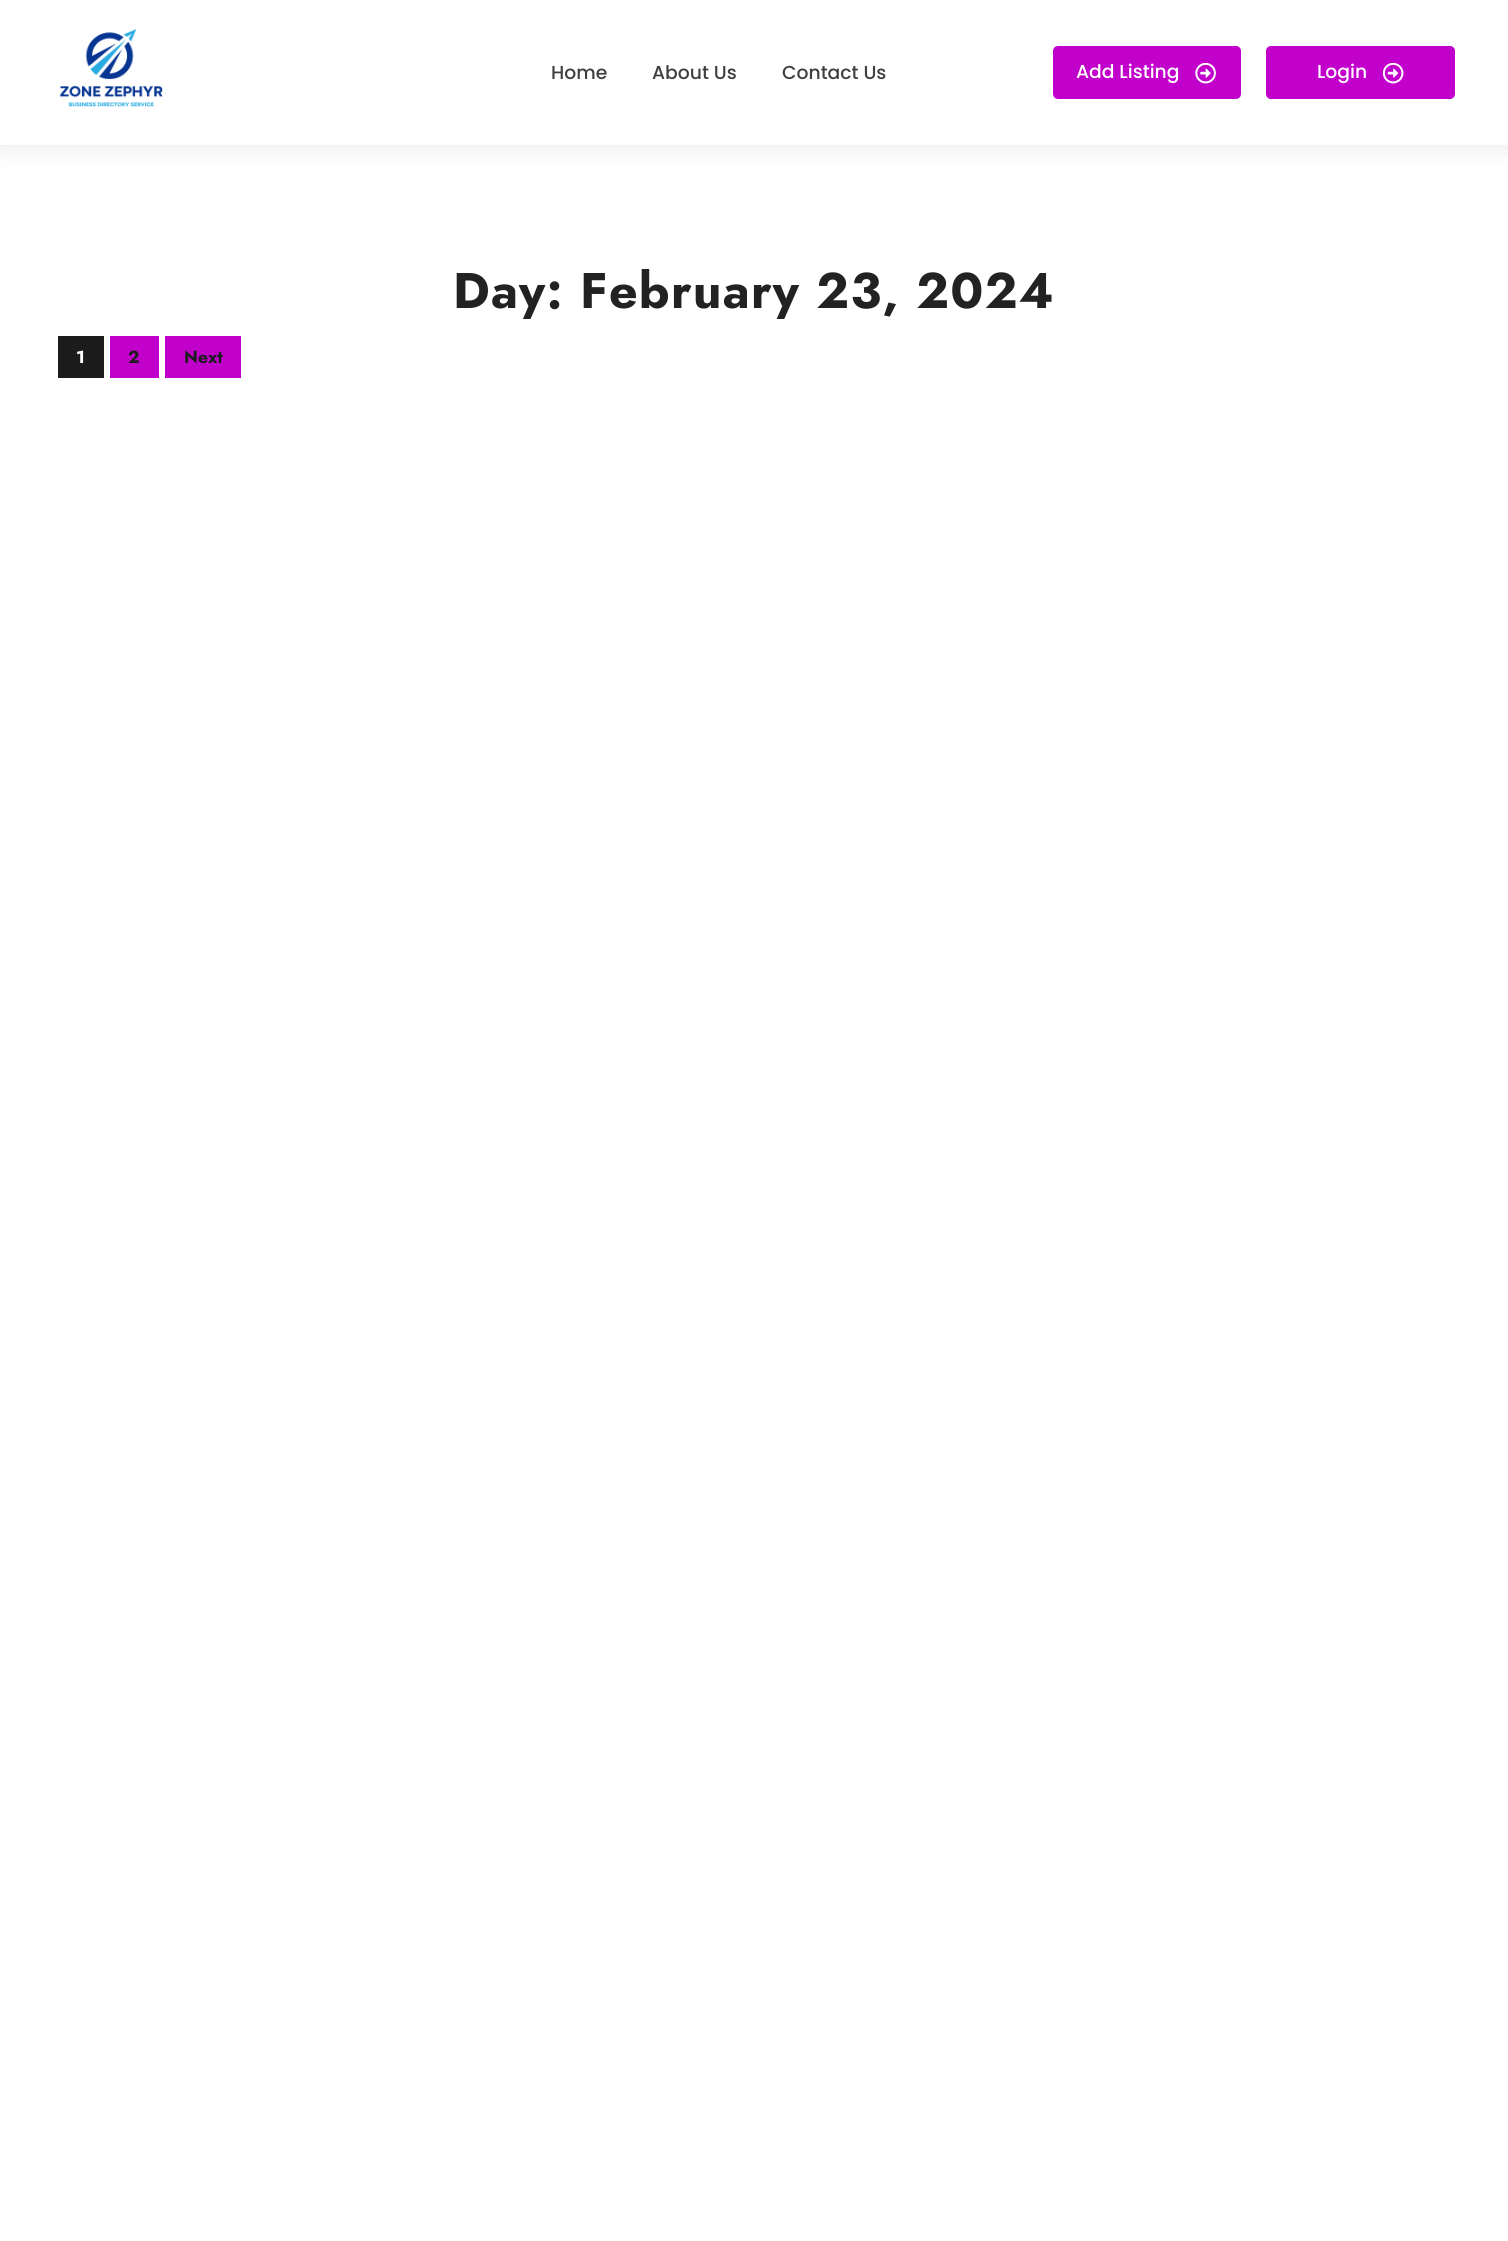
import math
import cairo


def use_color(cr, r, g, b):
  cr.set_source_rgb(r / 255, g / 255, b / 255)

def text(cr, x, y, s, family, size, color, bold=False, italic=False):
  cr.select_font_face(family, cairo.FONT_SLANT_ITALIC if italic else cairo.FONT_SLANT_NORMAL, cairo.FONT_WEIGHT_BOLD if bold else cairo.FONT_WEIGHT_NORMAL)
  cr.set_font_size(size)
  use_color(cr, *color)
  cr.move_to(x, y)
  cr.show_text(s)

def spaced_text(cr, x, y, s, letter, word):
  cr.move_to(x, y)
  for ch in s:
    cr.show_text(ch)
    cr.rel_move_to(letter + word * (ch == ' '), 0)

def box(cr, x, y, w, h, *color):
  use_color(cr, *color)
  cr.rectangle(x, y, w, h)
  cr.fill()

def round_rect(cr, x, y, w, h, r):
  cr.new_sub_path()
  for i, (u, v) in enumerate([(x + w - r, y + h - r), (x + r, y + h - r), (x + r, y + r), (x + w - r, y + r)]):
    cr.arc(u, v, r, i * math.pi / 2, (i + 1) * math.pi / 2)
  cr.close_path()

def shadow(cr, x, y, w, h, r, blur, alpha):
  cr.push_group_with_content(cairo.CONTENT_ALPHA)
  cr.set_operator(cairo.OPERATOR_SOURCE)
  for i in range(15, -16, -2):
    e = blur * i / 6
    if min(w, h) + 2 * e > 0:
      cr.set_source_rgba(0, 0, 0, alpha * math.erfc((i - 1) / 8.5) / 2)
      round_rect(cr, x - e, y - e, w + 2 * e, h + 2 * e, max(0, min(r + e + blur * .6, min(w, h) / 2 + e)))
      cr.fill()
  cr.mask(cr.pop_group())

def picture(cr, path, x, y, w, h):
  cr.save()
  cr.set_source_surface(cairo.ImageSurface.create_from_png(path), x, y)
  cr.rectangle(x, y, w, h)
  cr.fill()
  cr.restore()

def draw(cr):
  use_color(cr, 255, 255, 255)
  cr.paint()
  cr.save()
  cr.rectangle(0, 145, 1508, 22)
  cr.clip()
  use_color(cr, 203, 203, 203)
  shadow(cr, 0, 0, 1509, 145, 0, 12.5, 0.5)
  cr.restore()
  picture(cr, "img_01.png", 59, 28, 104, 79)
  use_color(cr, 193, 0, 204)
  round_rect(cr, 1053, 46, 188, 53, 5)
  cr.fill()
  picture(cr, "img_02.png", 1195, 63, 21, 21)
  round_rect(cr, 1266, 46, 189, 53, 5)
  cr.fill()
  picture(cr, "img_03.png", 1383, 63, 21, 21)
  box(cr, 58, 336, 46, 42, 28, 28, 28)
  box(cr, 110, 336, 49, 42, 193, 0, 204)
  box(cr, 165, 336, 76, 42, 193, 0, 204)
  text(cr, 551, 79, "Home", "Poppins Medium", 18.75, (63, 63, 63))
  text(cr, 652, 79, "About Us", "Poppins Medium", 18.75, (63, 63, 63))
  text(cr, 782, 79, "Contact Us", "Poppins Medium", 18.75, (63, 63, 63))
  text(cr, 1076, 78, "Add Listing", "Poppins Medium", 18.75, (255, 255, 255))
  text(cr, 1317, 78, "Login", "Poppins Medium", 18.75, (255, 255, 255))
  cr.select_font_face("Jost", cairo.FONT_SLANT_NORMAL, cairo.FONT_WEIGHT_BOLD)
  cr.set_font_size(50)
  use_color(cr, 34, 34, 34)
  spaced_text(cr, 453, 308, "Day: February 23, 2024", 1.25, 0)
  text(cr, 76, 363, "1", "Jost", 17.5, (255, 255, 255), bold=True)
  text(cr, 128, 363, "2", "Jost", 17.5, (28, 28, 28), bold=True)
  text(cr, 184, 363, "Next", "Jost", 17.5, (28, 28, 28), bold=True)


surface = cairo.ImageSurface(cairo.FORMAT_RGB24, 1508, 2241)
cr = cairo.Context(surface)
options = cairo.FontOptions()
options.set_hint_metrics(cairo.HINT_METRICS_OFF)
options.set_hint_style(cairo.HINT_STYLE_NONE)
cr.set_font_options(options)
cr.set_miter_limit(4)
draw(cr)
surface.write_to_png("out.png")
